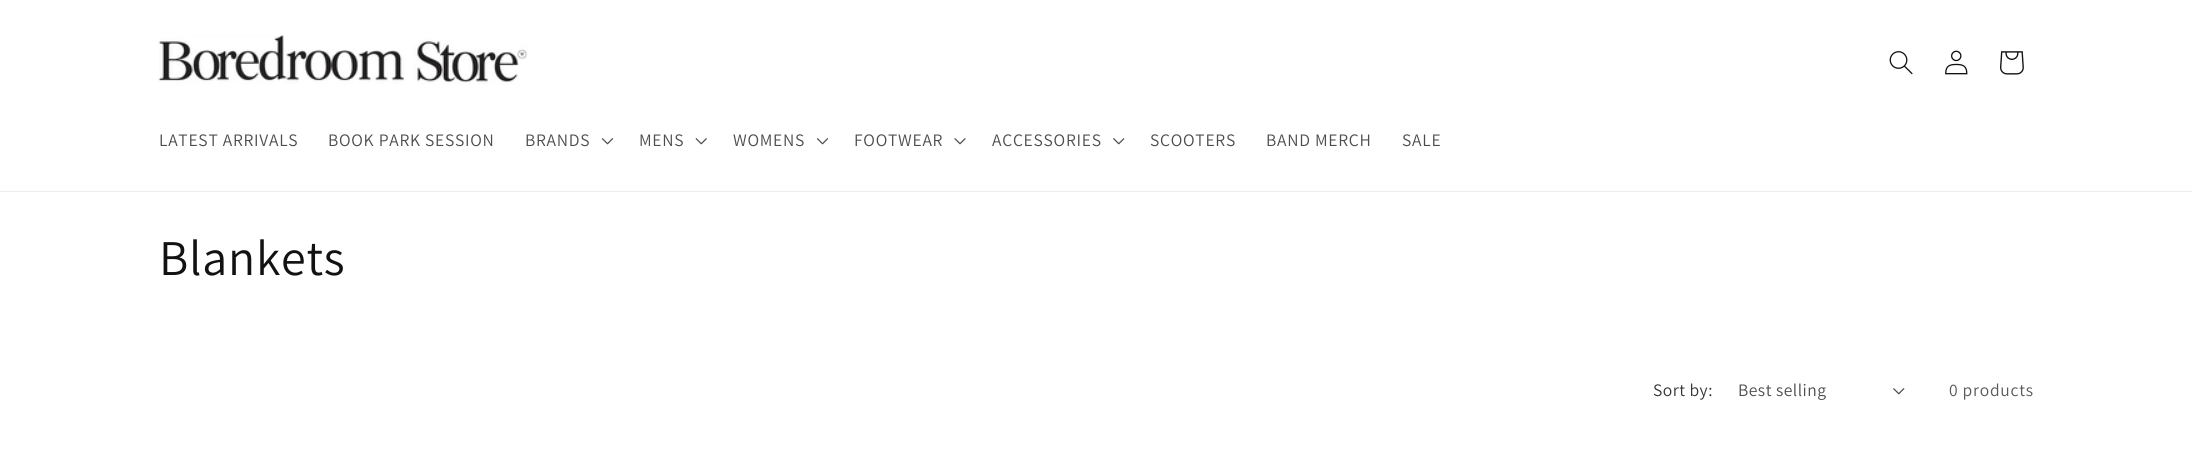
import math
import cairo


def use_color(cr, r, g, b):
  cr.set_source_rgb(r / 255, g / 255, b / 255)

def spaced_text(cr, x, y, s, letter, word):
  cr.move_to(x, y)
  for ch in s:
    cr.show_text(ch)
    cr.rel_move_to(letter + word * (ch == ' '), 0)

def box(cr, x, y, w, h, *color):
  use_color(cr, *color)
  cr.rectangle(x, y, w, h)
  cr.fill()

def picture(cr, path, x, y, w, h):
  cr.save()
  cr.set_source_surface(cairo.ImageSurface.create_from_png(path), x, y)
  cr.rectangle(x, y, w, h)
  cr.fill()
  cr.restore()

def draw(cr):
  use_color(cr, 255, 255, 255)
  cr.paint()
  box(cr, 0, 191, 2192, 1, 236, 236, 236)
  picture(cr, "img_01.png", 158, 35, 370, 50)
  picture(cr, "img_02.png", 1889, 51, 24, 24)
  picture(cr, "img_03.png", 1945, 50, 23, 25)
  picture(cr, "img_04.png", 2000, 51, 24, 24)
  picture(cr, "img_05.png", 601, 138, 13, 7)
  picture(cr, "img_06.png", 695, 138, 12, 7)
  picture(cr, "img_05.png", 816, 138, 13, 7)
  picture(cr, "img_07.png", 954, 138, 12, 7)
  picture(cr, "img_08.png", 1113, 138, 12, 7)
  picture(cr, "img_08.png", 1893, 388, 12, 7)
  cr.select_font_face("Assistant")
  cr.set_font_size(17.5)
  use_color(cr, 77, 77, 77)
  spaced_text(cr, 159, 146, "LATEST ARRIVALS", 0.75, 0)
  spaced_text(cr, 328, 146, "BOOK PARK SESSION", 0.75, 0)
  spaced_text(cr, 525, 146, "BRANDS", 0.75, 0)
  spaced_text(cr, 639, 146, "MENS", 0.75, 0)
  spaced_text(cr, 733, 146, "WOMENS", 0.75, 0)
  spaced_text(cr, 854, 146, "FOOTWEAR", 0.75, 0)
  spaced_text(cr, 992, 146, "ACCESSORIES", 0.75, 0)
  spaced_text(cr, 1150, 146, "SCOOTERS", 0.75, 0)
  spaced_text(cr, 1266, 146, "BAND MERCH", 0.75, 0)
  spaced_text(cr, 1402, 146, "SALE", 0.75, 0)
  cr.set_font_size(50)
  use_color(cr, 18, 18, 18)
  spaced_text(cr, 159, 275, "Blankets", 0.75, 0)
  cr.set_font_size(17.5)
  use_color(cr, 54, 54, 54)
  spaced_text(cr, 1653, 396, "Sort by:", 0.5, 0)
  use_color(cr, 77, 77, 77)
  spaced_text(cr, 1738, 396, "Best selling", 0.5, 0)
  use_color(cr, 89, 89, 89)
  spaced_text(cr, 1949, 396, "0 products", 0.75, 0)


surface = cairo.ImageSurface(cairo.FORMAT_RGB24, 2192, 453)
cr = cairo.Context(surface)
options = cairo.FontOptions()
options.set_hint_metrics(cairo.HINT_METRICS_OFF)
options.set_hint_style(cairo.HINT_STYLE_NONE)
cr.set_font_options(options)
cr.set_miter_limit(4)
draw(cr)
surface.write_to_png("out.png")
